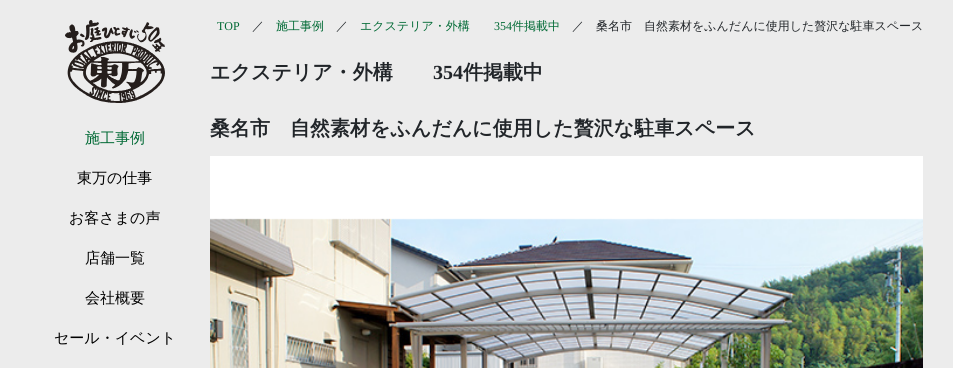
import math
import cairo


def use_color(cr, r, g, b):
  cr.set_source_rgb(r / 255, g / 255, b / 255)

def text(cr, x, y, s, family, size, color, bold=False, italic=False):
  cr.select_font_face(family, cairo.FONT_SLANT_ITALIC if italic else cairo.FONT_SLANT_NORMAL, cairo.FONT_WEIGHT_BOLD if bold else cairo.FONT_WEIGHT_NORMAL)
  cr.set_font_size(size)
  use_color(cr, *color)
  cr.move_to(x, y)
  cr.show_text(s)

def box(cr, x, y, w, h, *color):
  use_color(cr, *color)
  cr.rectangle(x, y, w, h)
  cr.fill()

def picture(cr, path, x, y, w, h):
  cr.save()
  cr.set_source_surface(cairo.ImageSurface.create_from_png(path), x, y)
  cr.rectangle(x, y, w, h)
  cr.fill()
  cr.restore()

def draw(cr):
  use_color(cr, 236, 236, 236)
  cr.paint()
  box(cr, 210, 156, 713, 64, 255, 255, 255)
  picture(cr, "img_01.png", 210, 218, 713, 150)
  picture(cr, "img_02.png", 65, 20, 100, 83)
  text(cr, 217, 30, "TOP", "Liberation Serif", 12, (0, 105, 52))
  text(cr, 252, 30, "／", "WenQuanYi Zen Hei Medium", 12, (33, 37, 41))
  text(cr, 276, 30, "施工事例", "WenQuanYi Zen Hei Medium", 12, (0, 105, 52))
  text(cr, 336, 30, "／", "WenQuanYi Zen Hei Medium", 12, (33, 37, 41))
  text(cr, 360, 30, "エクステリア・外構", "WenQuanYi Zen Hei Medium", 12, (0, 105, 52))
  text(cr, 494, 30, "354", "Liberation Serif", 12, (0, 105, 52))
  text(cr, 512, 30, "件掲載中", "WenQuanYi Zen Hei Medium", 12, (0, 105, 52))
  text(cr, 572, 30, "／", "WenQuanYi Zen Hei Medium", 12, (33, 37, 41))
  text(cr, 596, 30, "桑名市　自然素材をふんだんに使用した贅沢な駐車スペース", "WenQuanYi Zen Hei Medium", 12, (33, 37, 41))
  text(cr, 210, 79, "エクステリア・外構", "WenQuanYi Zen Hei", 20, (33, 37, 41), bold=True)
  text(cr, 433, 79, "354", "Liberation Serif", 20, (33, 37, 41), bold=True)
  text(cr, 463, 79, "件掲載中", "WenQuanYi Zen Hei", 20, (33, 37, 41), bold=True)
  text(cr, 210, 135, "桑名市　自然素材をふんだんに使用した贅沢な駐車スペース", "WenQuanYi Zen Hei", 20, (33, 37, 41), bold=True)
  text(cr, 85, 143, "施工事例", "WenQuanYi Zen Hei Medium", 15, (0, 105, 52))
  text(cr, 77, 183, "東万の仕事", "WenQuanYi Zen Hei Medium", 15, (0, 0, 0))
  text(cr, 69, 223, "お客さまの声", "WenQuanYi Zen Hei Medium", 15, (0, 0, 0))
  text(cr, 85, 263, "店舗一覧", "WenQuanYi Zen Hei Medium", 15, (0, 0, 0))
  text(cr, 85, 303, "会社概要", "WenQuanYi Zen Hei Medium", 15, (0, 0, 0))
  text(cr, 54, 343, "セール・イベント", "WenQuanYi Zen Hei Medium", 15, (0, 0, 0))


surface = cairo.ImageSurface(cairo.FORMAT_RGB24, 953, 368)
cr = cairo.Context(surface)
options = cairo.FontOptions()
options.set_hint_metrics(cairo.HINT_METRICS_OFF)
options.set_hint_style(cairo.HINT_STYLE_NONE)
cr.set_font_options(options)
cr.set_miter_limit(4)
draw(cr)
surface.write_to_png("out.png")
